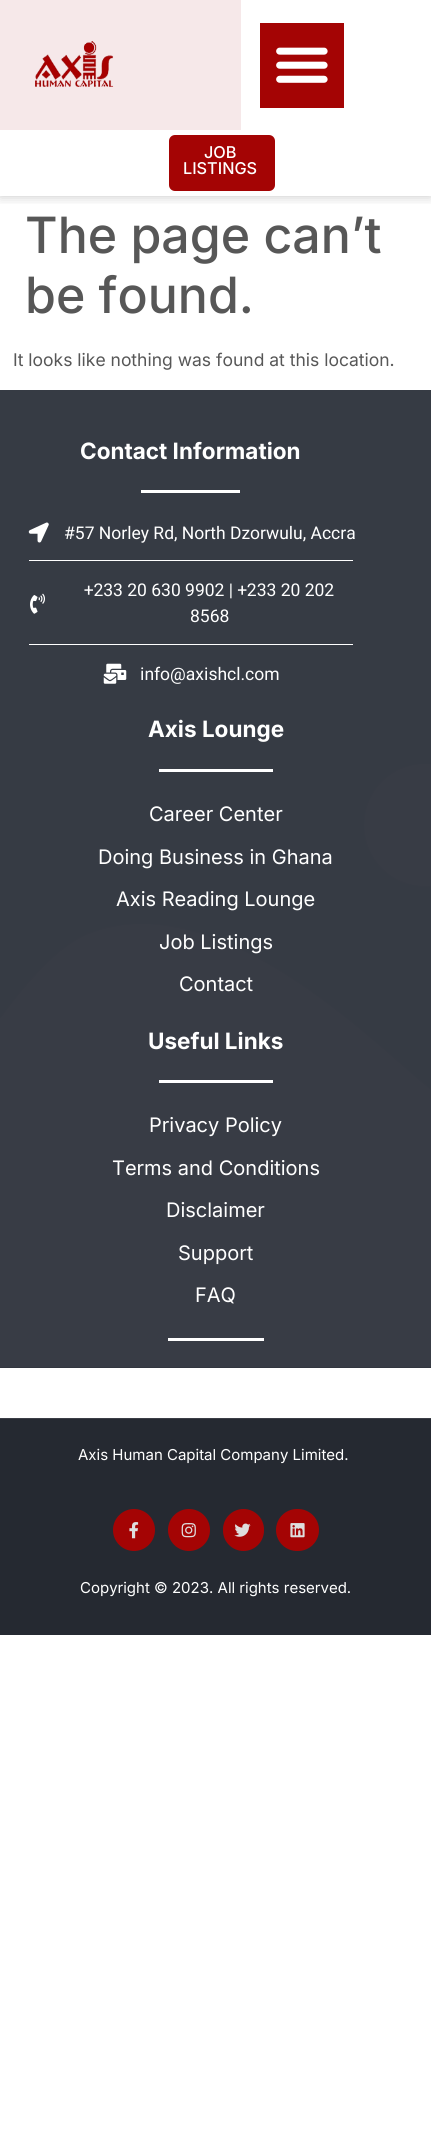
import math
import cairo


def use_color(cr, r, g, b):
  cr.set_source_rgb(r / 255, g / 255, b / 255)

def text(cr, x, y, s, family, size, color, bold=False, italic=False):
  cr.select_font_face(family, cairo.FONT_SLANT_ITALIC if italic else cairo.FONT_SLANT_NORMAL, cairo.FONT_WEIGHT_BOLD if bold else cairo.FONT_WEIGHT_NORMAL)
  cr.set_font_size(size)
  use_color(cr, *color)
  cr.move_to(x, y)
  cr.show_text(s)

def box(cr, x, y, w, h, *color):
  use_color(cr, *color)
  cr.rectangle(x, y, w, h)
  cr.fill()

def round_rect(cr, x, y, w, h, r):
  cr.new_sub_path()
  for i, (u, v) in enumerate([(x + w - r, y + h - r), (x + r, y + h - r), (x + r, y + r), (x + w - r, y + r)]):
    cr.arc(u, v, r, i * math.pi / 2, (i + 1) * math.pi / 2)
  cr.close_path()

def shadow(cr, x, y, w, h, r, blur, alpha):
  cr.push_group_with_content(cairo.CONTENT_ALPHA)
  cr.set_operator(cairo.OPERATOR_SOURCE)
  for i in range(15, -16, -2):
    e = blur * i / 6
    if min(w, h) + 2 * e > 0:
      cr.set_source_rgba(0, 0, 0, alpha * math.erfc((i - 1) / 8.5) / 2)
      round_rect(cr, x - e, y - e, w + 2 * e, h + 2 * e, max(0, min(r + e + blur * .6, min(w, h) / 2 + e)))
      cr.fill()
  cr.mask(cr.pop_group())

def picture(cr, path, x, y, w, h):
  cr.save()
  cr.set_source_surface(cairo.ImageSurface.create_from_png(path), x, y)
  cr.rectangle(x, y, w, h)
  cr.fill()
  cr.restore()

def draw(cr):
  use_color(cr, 255, 255, 255)
  cr.paint()
  cr.save()
  cr.rectangle(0, 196, 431, 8)
  cr.clip()
  use_color(cr, 0, 0, 0)
  shadow(cr, 0, 0, 431, 196, 0, 6, 0.23)
  cr.restore()
  box(cr, 0, 0, 241, 130, 246, 232, 233)
  picture(cr, "img_01.png", 35, 41, 79, 46)
  box(cr, 260, 23, 84, 85, 164, 4, 4)
  picture(cr, "img_02.png", 276, 47, 52, 36)
  round_rect(cr, 169, 135, 106, 56, 6)
  cr.fill()
  box(cr, 0, 390, 431, 978, 50, 54, 63)
  picture(cr, "img_03.png", 0, 390, 431, 977)
  box(cr, 141, 490, 99, 3, 255, 255, 255)
  picture(cr, "img_04.png", 28, 522, 21, 21)
  box(cr, 29, 560, 324, 1, 255, 255, 255)
  picture(cr, "img_05.png", 30, 593, 15, 21)
  box(cr, 29, 644, 324, 1, 255, 255, 255)
  picture(cr, "img_06.png", 103, 663, 24, 21)
  box(cr, 159, 769, 114, 3, 255, 255, 255)
  box(cr, 159, 1080, 114, 3, 255, 255, 255)
  box(cr, 168, 1338, 96, 3, 255, 255, 255)
  box(cr, 0, 1419, 431, 216, 37, 41, 49)
  box(cr, 0, 1418, 431, 1, 59, 62, 70)
  use_color(cr, 164, 4, 4)
  cr.arc(134, 1530, 21, 0, 2 * math.pi)
  cr.fill()
  picture(cr, "img_07.png", 129, 1522, 10, 17)
  cr.arc(189, 1530, 21, 0, 2 * math.pi)
  cr.fill()
  picture(cr, "img_08.png", 181, 1523, 15, 15)
  round_rect(cr, 223, 1509, 41, 42, 20.5)
  cr.fill()
  picture(cr, "img_09.png", 234, 1523, 17, 14)
  round_rect(cr, 276, 1509, 43, 42, 21)
  cr.fill()
  picture(cr, "img_10.png", 290, 1523, 15, 15)
  text(cr, 204, 158, "JOB", "Inter Medium", 16.25, (255, 255, 255))
  text(cr, 183, 174, "LISTINGS", "Inter Medium", 16.25, (255, 255, 255))
  text(cr, 25, 253, "The page can’t", "Inter Medium", 50, (87, 87, 87))
  text(cr, 25, 313, "be found.", "Inter Medium", 50, (87, 87, 87))
  text(cr, 13, 366, "It looks like nothing was found at this location.", "Inter", 17.5, (87, 87, 87))
  text(cr, 80, 459, "Contact Information", "Inter", 22.5, (255, 255, 255), bold=True)
  text(cr, 64, 539, "#57 Norley Rd, North Dzorwulu, Accra", "Heebo", 17.5, (255, 255, 255))
  text(cr, 84, 596, "+233 20 630 9902 | +233 20 202", "Heebo", 17.5, (255, 255, 255))
  text(cr, 190, 622, "8568", "Heebo", 17.5, (255, 255, 255))
  text(cr, 140, 680, "info@axishcl.com", "Heebo", 17.5, (255, 255, 255))
  text(cr, 148, 737, "Axis Lounge", "Inter", 22.5, (255, 255, 255), bold=True)
  text(cr, 149, 821, "Career Center", "Inter", 20, (255, 255, 255))
  text(cr, 98, 864, "Doing Business in Ghana", "Inter", 20, (255, 255, 255))
  text(cr, 116, 906, "Axis Reading Lounge", "Inter", 20, (255, 255, 255))
  text(cr, 159, 949, "Job Listings", "Inter", 20, (255, 255, 255))
  text(cr, 179, 991, "Contact", "Inter", 20, (255, 255, 255))
  text(cr, 148, 1049, "Useful Links", "Inter", 22.5, (255, 255, 255), bold=True)
  text(cr, 149, 1132, "Privacy Policy", "Inter", 20, (255, 255, 255))
  text(cr, 112, 1175, "Terms and Conditions", "Inter", 20, (255, 255, 255))
  text(cr, 166, 1217, "Disclaimer", "Inter", 20, (255, 255, 255))
  text(cr, 178, 1260, "Support", "Inter", 20, (255, 255, 255))
  text(cr, 195, 1302, "FAQ", "Inter", 20, (255, 255, 255))
  text(cr, 78, 1460, "Axis Human Capital Company Limited.", "Inter", 15, (255, 255, 255))
  text(cr, 80, 1593, "Copyright © 2023. All rights reserved.", "Inter", 15, (255, 255, 255))


surface = cairo.ImageSurface(cairo.FORMAT_RGB24, 431, 2138)
cr = cairo.Context(surface)
options = cairo.FontOptions()
options.set_hint_metrics(cairo.HINT_METRICS_OFF)
options.set_hint_style(cairo.HINT_STYLE_NONE)
cr.set_font_options(options)
cr.set_miter_limit(4)
draw(cr)
surface.write_to_png("out.png")
